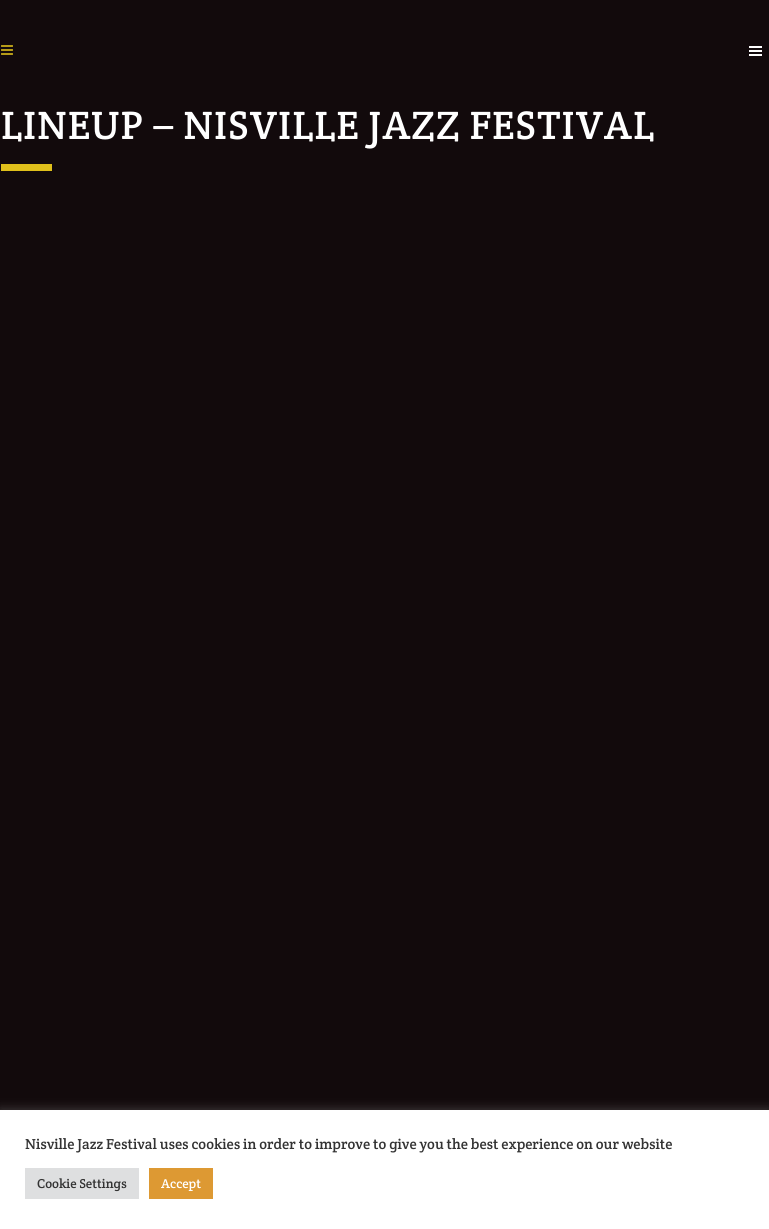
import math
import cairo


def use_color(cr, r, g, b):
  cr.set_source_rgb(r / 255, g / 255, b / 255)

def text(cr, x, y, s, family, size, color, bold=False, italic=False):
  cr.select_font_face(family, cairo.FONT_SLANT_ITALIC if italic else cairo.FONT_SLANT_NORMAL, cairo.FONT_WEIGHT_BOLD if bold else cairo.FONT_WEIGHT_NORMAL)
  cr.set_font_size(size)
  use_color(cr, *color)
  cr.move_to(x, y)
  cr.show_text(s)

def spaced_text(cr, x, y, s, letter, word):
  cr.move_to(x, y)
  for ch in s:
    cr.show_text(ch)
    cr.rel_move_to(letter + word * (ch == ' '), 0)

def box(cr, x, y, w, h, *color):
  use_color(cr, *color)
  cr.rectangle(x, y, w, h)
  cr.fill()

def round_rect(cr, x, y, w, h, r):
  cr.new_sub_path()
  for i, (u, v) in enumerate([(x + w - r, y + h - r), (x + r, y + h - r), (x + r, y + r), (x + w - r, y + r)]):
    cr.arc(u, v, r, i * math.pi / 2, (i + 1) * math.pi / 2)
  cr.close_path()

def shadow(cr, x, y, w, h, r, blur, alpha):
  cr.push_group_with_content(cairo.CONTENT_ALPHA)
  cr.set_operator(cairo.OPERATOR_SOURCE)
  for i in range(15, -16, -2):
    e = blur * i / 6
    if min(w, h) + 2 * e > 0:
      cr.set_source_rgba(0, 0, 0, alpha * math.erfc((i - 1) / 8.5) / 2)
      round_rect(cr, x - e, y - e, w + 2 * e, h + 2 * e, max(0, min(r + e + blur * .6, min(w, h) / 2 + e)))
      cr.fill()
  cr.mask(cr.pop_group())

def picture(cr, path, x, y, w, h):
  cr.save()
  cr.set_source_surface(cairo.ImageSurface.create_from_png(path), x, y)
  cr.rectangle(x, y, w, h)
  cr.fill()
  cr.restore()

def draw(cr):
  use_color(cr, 18, 10, 12)
  cr.paint()
  picture(cr, "img_01.png", 1, 45, 12, 10)
  box(cr, 749, 50, 13, 2, 254, 254, 254)
  box(cr, 749, 46, 13, 2, 254, 254, 254)
  box(cr, 749, 54, 13, 2, 254, 254, 254)
  box(cr, 1, 164, 51, 7, 223, 192, 27)
  use_color(cr, 172, 171, 171)
  shadow(cr, 0, 1109, 769, 119, 0, 5, 0.3)
  box(cr, 0, 1110, 769, 119, 255, 255, 255)
  box(cr, 25, 1168, 114, 31, 222, 223, 224)
  box(cr, 149, 1168, 64, 31, 221, 153, 51)
  cr.select_font_face("Crete Round")
  cr.set_font_size(40)
  use_color(cr, 255, 255, 255)
  spaced_text(cr, 1, 139, "LINEUP – NISVILLE JAZZ FESTIVAL", 1, 0)
  text(cr, 25, 1149, "Nisville Jazz Festival uses cookies in order to improve to give you the best experience on our website", "Crete Round", 14.65, (51, 51, 51))
  text(cr, 37, 1188, "Cookie Settings", "Crete Round", 13, (51, 51, 51))
  text(cr, 161, 1188, "Accept", "Crete Round", 13, (255, 255, 255))


surface = cairo.ImageSurface(cairo.FORMAT_RGB24, 769, 1229)
cr = cairo.Context(surface)
options = cairo.FontOptions()
options.set_hint_metrics(cairo.HINT_METRICS_OFF)
options.set_hint_style(cairo.HINT_STYLE_NONE)
cr.set_font_options(options)
cr.set_miter_limit(4)
draw(cr)
surface.write_to_png("out.png")
